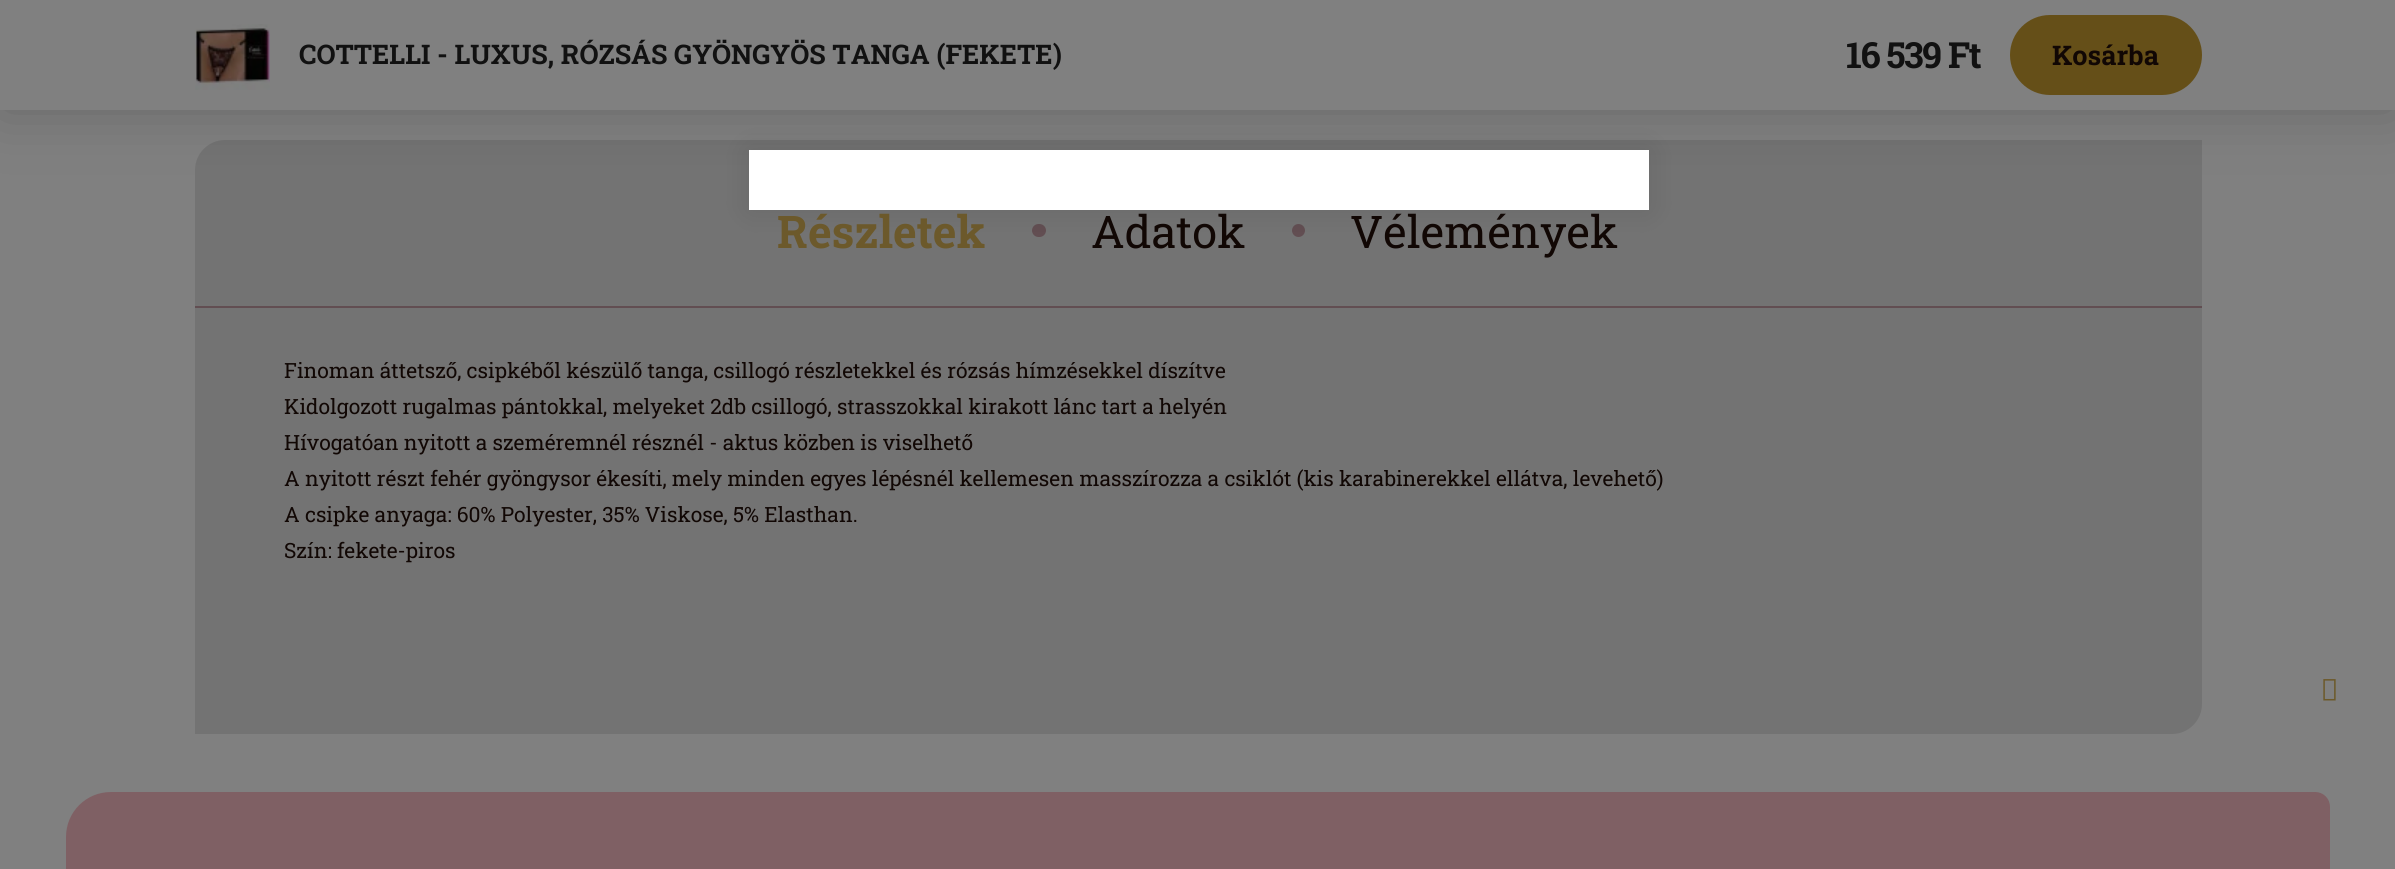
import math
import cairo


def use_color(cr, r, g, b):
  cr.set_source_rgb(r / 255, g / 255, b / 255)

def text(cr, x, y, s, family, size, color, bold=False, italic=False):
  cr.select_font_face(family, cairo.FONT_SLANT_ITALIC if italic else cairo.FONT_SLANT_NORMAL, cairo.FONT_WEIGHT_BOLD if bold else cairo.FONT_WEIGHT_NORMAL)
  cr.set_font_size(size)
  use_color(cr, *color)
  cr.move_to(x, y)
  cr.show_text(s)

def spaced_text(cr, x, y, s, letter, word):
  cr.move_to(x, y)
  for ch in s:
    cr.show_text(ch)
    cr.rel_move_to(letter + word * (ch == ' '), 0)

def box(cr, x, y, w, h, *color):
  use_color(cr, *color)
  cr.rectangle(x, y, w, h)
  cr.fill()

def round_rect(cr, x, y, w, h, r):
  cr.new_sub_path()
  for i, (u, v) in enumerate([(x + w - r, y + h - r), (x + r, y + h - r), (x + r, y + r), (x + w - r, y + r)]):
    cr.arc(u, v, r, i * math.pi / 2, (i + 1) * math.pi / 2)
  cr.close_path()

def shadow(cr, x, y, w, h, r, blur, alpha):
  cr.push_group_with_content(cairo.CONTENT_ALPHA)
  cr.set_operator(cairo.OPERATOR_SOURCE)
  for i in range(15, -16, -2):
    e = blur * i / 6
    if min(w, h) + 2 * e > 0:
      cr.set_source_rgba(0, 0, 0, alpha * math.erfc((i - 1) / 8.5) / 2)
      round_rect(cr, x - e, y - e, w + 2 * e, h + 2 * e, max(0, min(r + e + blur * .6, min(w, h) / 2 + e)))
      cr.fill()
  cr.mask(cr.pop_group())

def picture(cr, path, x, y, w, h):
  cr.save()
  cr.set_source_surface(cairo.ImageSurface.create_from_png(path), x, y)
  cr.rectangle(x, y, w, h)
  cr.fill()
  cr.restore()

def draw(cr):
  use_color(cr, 128, 128, 128)
  cr.paint()
  use_color(cr, 115, 115, 115)
  cr.new_path()
  cr.move_to(225, 140)
  cr.line_to(2202, 140)
  cr.line_to(2202, 704)
  cr.curve_to(2202, 720.5, 2188.5, 734, 2172, 734)
  cr.line_to(195, 734)
  cr.line_to(195, 170)
  cr.curve_to(195, 153.5, 208.5, 140, 225, 140)
  cr.close_path()
  cr.fill()
  use_color(cr, 0, 0, 0)
  shadow(cr, 0, 0, 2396, 110, 0, 30, 0.2)
  box(cr, 0, 0, 2395, 110, 128, 128, 128)
  picture(cr, "img_01.png", 195, 24, 75, 66)
  use_color(cr, 101, 79, 24)
  round_rect(cr, 2012.5, 17.5, 187, 75, 37.5)
  cr.fill_preserve()
  cr.set_line_width(5)
  cr.stroke()
  box(cr, 195, 306, 2007, 2, 98, 78, 82)
  round_rect(cr, 1032, 224, 14, 13, 6.5)
  cr.fill()
  cr.arc(1298.5, 230.5, 6.5, 0, 2 * math.pi)
  cr.fill()
  use_color(cr, 127, 96, 100)
  cr.new_path()
  cr.move_to(111, 792)
  cr.line_to(2315, 792)
  cr.curve_to(2323.5, 792, 2330, 798.5, 2330, 807)
  cr.line_to(2330, 869)
  cr.curve_to(2330, 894, 2310, 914, 2285, 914)
  cr.line_to(81, 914)
  cr.curve_to(72.5, 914, 66, 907.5, 66, 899)
  cr.line_to(66, 837)
  cr.curve_to(66, 812, 86, 792, 111, 792)
  cr.close_path()
  cr.fill()
  use_color(cr, 0, 0, 0)
  shadow(cr, 749, 150, 900, 60, 0, 15, 0.1)
  box(cr, 749, 150, 900, 60, 255, 255, 255)
  picture(cr, "img_02.png", 2323, 679, 13, 22)
  text(cr, 299, 64, "COTTELLI - LUXUS, RÓZSÁS GYÖNGYÖS TANGA (FEKETE)", "Roboto Slab", 27, (17, 17, 17), bold=True)
  cr.set_font_size(36)
  spaced_text(cr, 1846, 68, "16 539 Ft", -1.5, 0)
  text(cr, 2052, 65, "Kosárba", "Roboto Slab", 27, (17, 7, 4), bold=True)
  text(cr, 777, 248, "Részletek", "Roboto Slab", 45, (108, 89, 43), bold=True)
  text(cr, 1091, 248, "Adatok", "Roboto Slab", 45, (17, 7, 4))
  text(cr, 1350, 248, "Vélemények", "Roboto Slab", 45, (17, 7, 4))
  text(cr, 284, 378, "Finoman áttetsző, csipkéből készülő tanga, csillogó részletekkel és rózsás hímzésekkel díszítve", "Roboto Slab", 21, (17, 7, 4))
  text(cr, 284, 414, "Kidolgozott rugalmas pántokkal, melyeket 2db csillogó, strasszokkal kirakott lánc tart a helyén", "Roboto Slab", 21, (17, 7, 4))
  text(cr, 284, 450, "Hívogatóan nyitott a szeméremnél résznél - aktus közben is viselhető", "Roboto Slab", 21, (17, 7, 4))
  text(cr, 284, 486, "A nyitott részt fehér gyöngysor ékesíti, mely minden egyes lépésnél kellemesen masszírozza a csiklót (kis karabinerekkel ellátva, levehető)", "Roboto Slab", 21, (17, 7, 4))
  text(cr, 284, 522, "A csipke anyaga: 60% Polyester, 35% Viskose, 5% Elasthan.", "Roboto Slab", 21, (17, 7, 4))
  text(cr, 284, 558, "Szín: fekete-piros", "Roboto Slab", 21, (17, 7, 4))


surface = cairo.ImageSurface(cairo.FORMAT_RGB24, 2395, 869)
cr = cairo.Context(surface)
options = cairo.FontOptions()
options.set_hint_metrics(cairo.HINT_METRICS_OFF)
options.set_hint_style(cairo.HINT_STYLE_NONE)
cr.set_font_options(options)
cr.set_miter_limit(4)
draw(cr)
surface.write_to_png("out.png")
